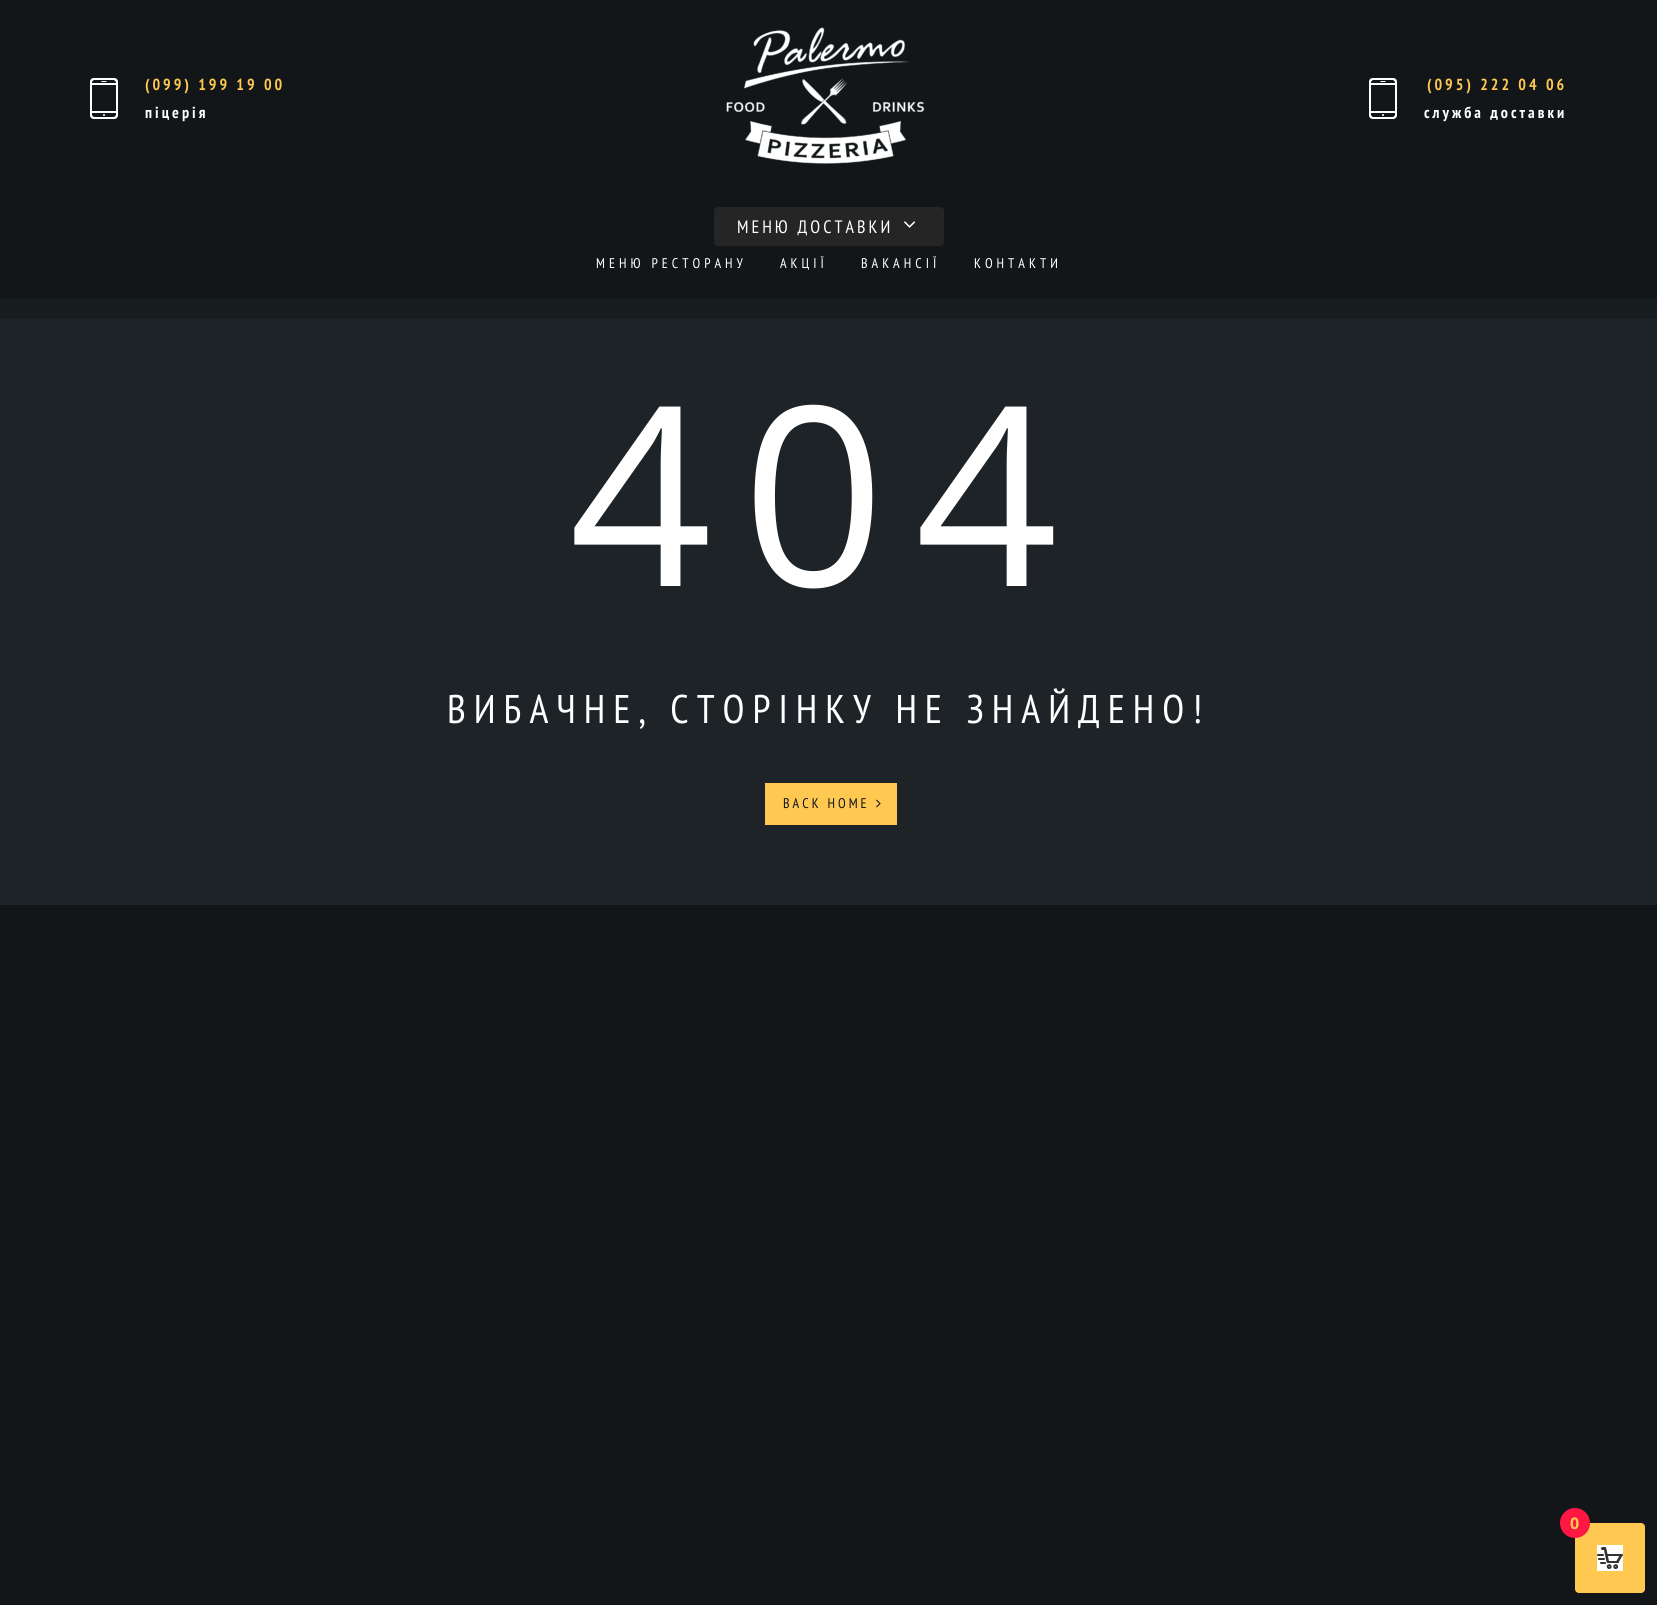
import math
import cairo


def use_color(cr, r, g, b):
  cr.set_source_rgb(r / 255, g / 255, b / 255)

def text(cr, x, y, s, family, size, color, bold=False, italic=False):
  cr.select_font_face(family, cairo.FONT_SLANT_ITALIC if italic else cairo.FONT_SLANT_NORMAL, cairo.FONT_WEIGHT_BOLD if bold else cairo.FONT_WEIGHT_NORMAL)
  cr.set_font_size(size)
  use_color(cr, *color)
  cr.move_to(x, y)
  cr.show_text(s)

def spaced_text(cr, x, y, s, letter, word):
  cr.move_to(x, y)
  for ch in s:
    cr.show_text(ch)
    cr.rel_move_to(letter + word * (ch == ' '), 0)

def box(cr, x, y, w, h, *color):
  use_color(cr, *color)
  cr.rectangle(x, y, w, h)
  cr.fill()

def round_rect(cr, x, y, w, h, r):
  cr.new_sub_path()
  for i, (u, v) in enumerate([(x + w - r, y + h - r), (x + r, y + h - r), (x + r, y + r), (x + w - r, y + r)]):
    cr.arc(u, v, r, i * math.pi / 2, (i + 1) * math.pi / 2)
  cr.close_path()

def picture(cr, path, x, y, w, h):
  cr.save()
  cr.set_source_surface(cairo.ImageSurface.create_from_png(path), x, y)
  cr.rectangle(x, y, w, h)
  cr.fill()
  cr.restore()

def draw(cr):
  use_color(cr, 18, 22, 24)
  cr.paint()
  picture(cr, "img_01.png", 90, 78, 28, 41)
  picture(cr, "img_02.png", 726, 27, 199, 137)
  picture(cr, "img_01.png", 1369, 78, 28, 41)
  use_color(cr, 37, 37, 37)
  round_rect(cr, 714, 207, 230, 39, 4)
  cr.fill()
  picture(cr, "img_03.png", 904, 221, 12, 7)
  box(cr, 0, 319, 1657, 586, 29, 35, 38)
  box(cr, 0, 299, 1657, 20, 24, 30, 32)
  box(cr, 765, 783, 132, 42, 255, 200, 81)
  picture(cr, "img_04.png", 876, 799, 5, 9)
  round_rect(cr, 1575, 1523, 70, 70, 4)
  cr.fill()
  use_color(cr, 255, 23, 68)
  cr.arc(1575, 1523, 15, 0, 2 * math.pi)
  cr.fill()
  picture(cr, "img_05.png", 1597, 1545, 26, 26)
  cr.select_font_face("PT Sans Narrow", cairo.FONT_SLANT_NORMAL, cairo.FONT_WEIGHT_BOLD)
  cr.set_font_size(16)
  use_color(cr, 255, 200, 81)
  spaced_text(cr, 145, 90, "(099) 199 19 00", 3, 0)
  use_color(cr, 255, 255, 255)
  spaced_text(cr, 145, 118, "піцерія", 3, 0)
  use_color(cr, 255, 200, 81)
  spaced_text(cr, 1427, 90, "(095) 222 04 06", 3, 0)
  use_color(cr, 255, 255, 255)
  spaced_text(cr, 1424, 118, "служба доставки", 3, 0)
  cr.select_font_face("PT Sans Narrow")
  cr.set_font_size(18)
  spaced_text(cr, 737, 233, "МЕНЮ ДОСТАВКИ", 3, 0)
  cr.set_font_size(14)
  spaced_text(cr, 596, 268, "МЕНЮ РЕСТОРАНУ", 4, 0)
  spaced_text(cr, 780, 268, "АКЦІЇ", 4, 0)
  spaced_text(cr, 861, 268, "ВАКАНСІЇ", 4, 0)
  spaced_text(cr, 974, 268, "КОНТАКТИ", 4, 0)
  cr.select_font_face("Open Sans")
  cr.set_font_size(250)
  spaced_text(cr, 569, 586, "404", 30, 0)
  cr.select_font_face("PT Sans Narrow")
  cr.set_font_size(40)
  spaced_text(cr, 447, 723, "ВИБАЧНЕ, СТОРІНКУ НЕ ЗНАЙДЕНО!", 8, 0)
  cr.set_font_size(14)
  use_color(cr, 18, 22, 24)
  spaced_text(cr, 783, 808, "BACK HOME", 3, 0)
  text(cr, 1570, 1529, "0", "Open Sans", 16, (255, 200, 81), bold=True)


surface = cairo.ImageSurface(cairo.FORMAT_RGB24, 1657, 1605)
cr = cairo.Context(surface)
options = cairo.FontOptions()
options.set_hint_metrics(cairo.HINT_METRICS_OFF)
options.set_hint_style(cairo.HINT_STYLE_NONE)
cr.set_font_options(options)
cr.set_miter_limit(4)
draw(cr)
surface.write_to_png("out.png")
